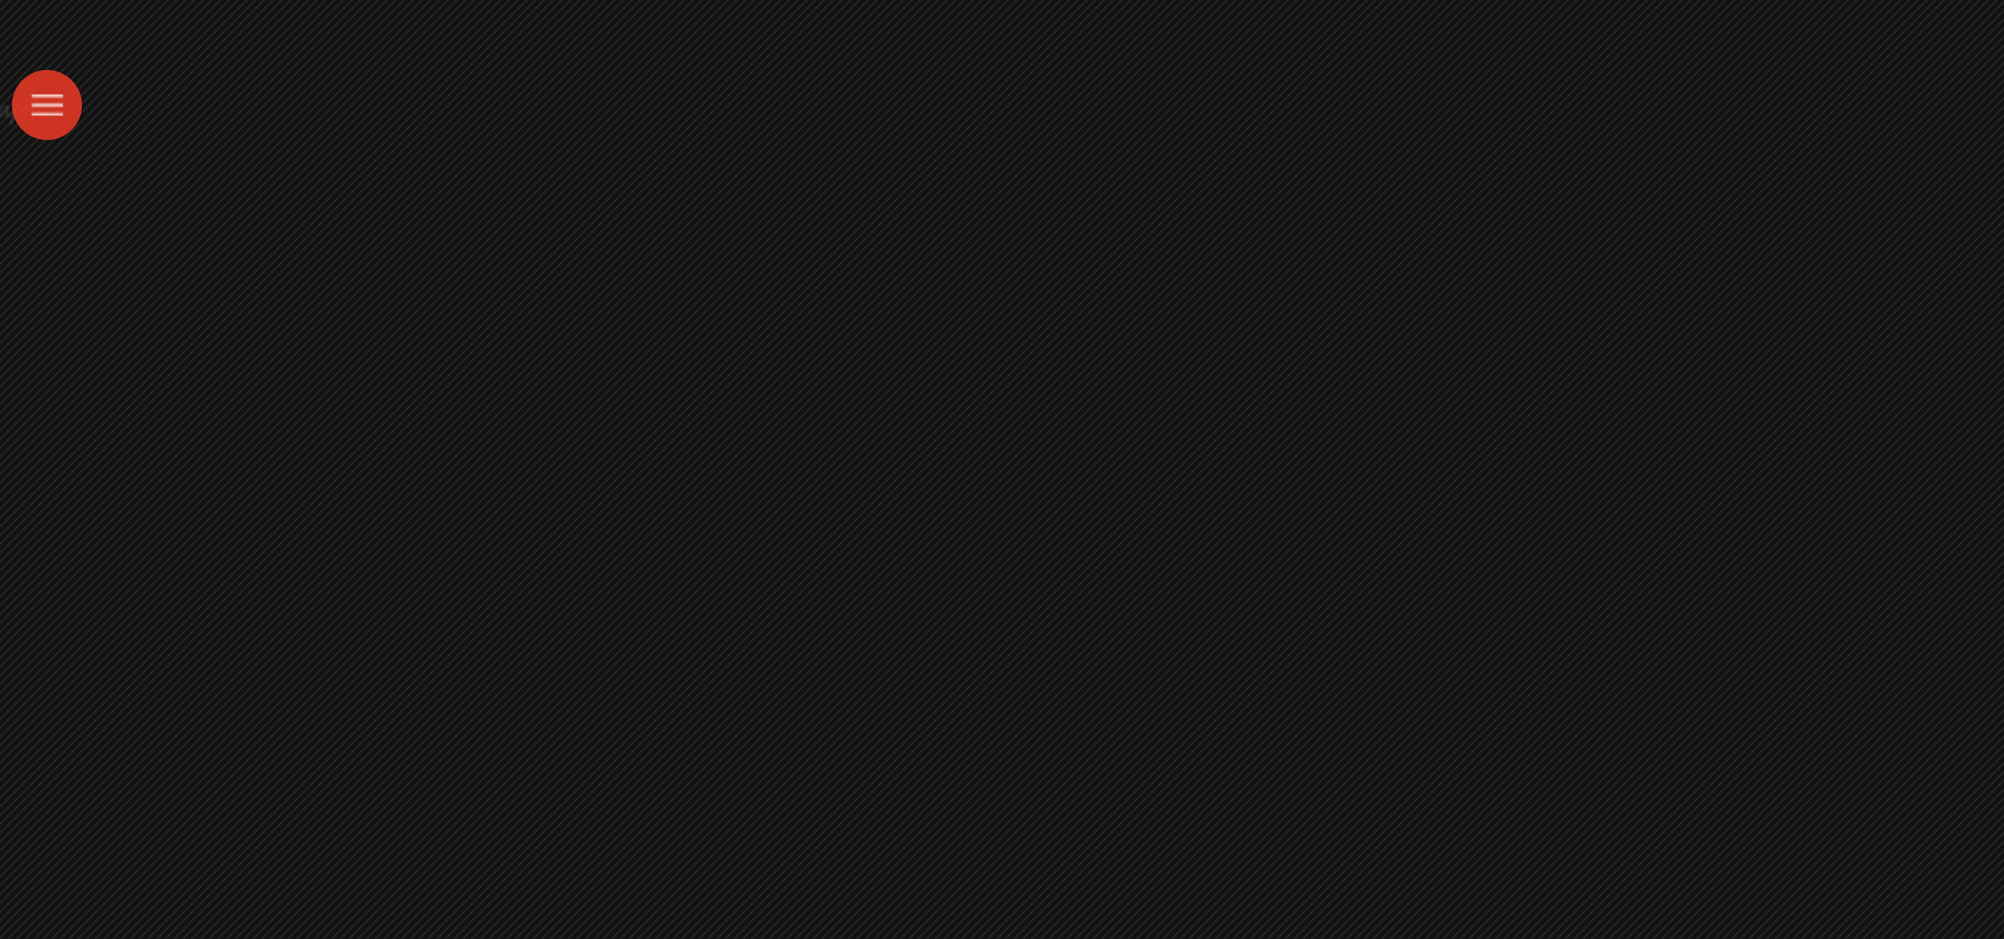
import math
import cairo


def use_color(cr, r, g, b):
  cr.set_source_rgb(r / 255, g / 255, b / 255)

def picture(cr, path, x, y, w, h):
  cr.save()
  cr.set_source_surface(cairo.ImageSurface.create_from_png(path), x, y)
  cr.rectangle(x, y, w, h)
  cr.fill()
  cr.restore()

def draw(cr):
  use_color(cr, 17, 17, 17)
  cr.paint()
  picture(cr, "img_01.png", 0, 0, 2004, 939)
  picture(cr, "img_03.png", 0, 99, 48, 26)
  cr.set_source_rgba(0.937, 0.231, 0.141, 0.84)
  cr.arc(47, 105, 35, 0, 2 * math.pi)
  cr.fill()
  picture(cr, "img_02.png", 30, 94, 34, 22)


surface = cairo.ImageSurface(cairo.FORMAT_RGB24, 2004, 939)
cr = cairo.Context(surface)
options = cairo.FontOptions()
options.set_hint_metrics(cairo.HINT_METRICS_OFF)
options.set_hint_style(cairo.HINT_STYLE_NONE)
cr.set_font_options(options)
cr.set_miter_limit(4)
draw(cr)
surface.write_to_png("out.png")
